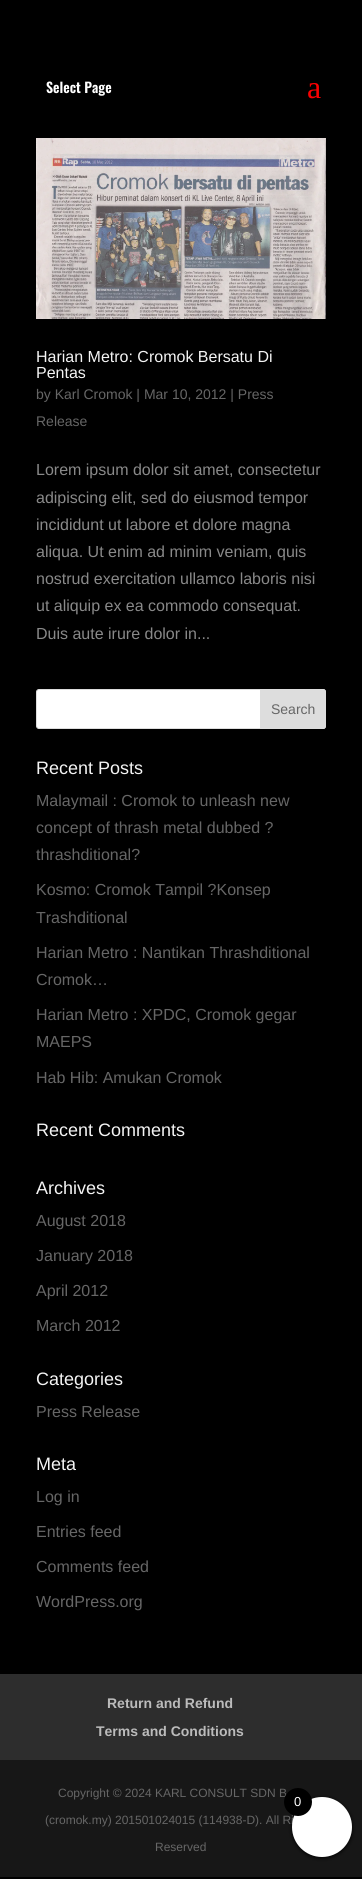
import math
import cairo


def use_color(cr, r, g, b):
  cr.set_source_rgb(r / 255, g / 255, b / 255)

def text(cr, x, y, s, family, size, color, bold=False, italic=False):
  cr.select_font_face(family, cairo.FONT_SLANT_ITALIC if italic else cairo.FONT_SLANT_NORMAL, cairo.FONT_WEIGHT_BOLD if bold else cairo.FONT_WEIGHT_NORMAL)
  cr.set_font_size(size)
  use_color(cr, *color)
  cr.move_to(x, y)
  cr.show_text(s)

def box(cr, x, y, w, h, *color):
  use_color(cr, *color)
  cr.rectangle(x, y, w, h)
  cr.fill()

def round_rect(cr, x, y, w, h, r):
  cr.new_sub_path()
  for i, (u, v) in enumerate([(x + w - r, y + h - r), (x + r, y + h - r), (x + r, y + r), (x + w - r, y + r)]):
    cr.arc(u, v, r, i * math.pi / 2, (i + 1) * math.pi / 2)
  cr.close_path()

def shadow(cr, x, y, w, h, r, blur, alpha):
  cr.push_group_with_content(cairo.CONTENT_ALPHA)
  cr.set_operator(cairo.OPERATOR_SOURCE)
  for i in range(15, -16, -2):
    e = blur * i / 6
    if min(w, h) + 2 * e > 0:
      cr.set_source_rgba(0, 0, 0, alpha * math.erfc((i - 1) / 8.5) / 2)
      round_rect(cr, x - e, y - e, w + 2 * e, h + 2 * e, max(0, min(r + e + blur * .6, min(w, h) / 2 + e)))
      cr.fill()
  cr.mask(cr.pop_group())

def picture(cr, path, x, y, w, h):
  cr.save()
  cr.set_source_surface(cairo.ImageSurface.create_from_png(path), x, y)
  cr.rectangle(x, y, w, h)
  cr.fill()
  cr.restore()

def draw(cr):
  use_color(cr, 0, 0, 0)
  cr.paint()
  picture(cr, "img_01.png", 36, 138, 290, 181)
  use_color(cr, 255, 255, 255)
  round_rect(cr, 36.5, 689.5, 289, 39, 2.5)
  cr.fill_preserve()
  use_color(cr, 221, 221, 221)
  cr.set_line_width(1)
  cr.stroke()
  cr.new_path()
  cr.move_to(260.5, 689.5)
  cr.line_to(323, 689.5)
  cr.curve_to(324.5, 689.5, 325.5, 690.5, 325.5, 692)
  cr.line_to(325.5, 726)
  cr.curve_to(325.5, 727.5, 324.5, 728.5, 323, 728.5)
  cr.line_to(260.5, 728.5)
  cr.close_path()
  cr.fill_preserve()
  cr.stroke()
  box(cr, 0, 1674, 362, 86, 45, 45, 45)
  box(cr, 0, 1760, 362, 117, 23, 23, 23)
  use_color(cr, 0, 0, 0)
  shadow(cr, 292, 1798, 60, 60, 30, 2, 1)
  text(cr, 46, 93, "Select Page", "Oswald SemiBold", 14, (255, 255, 255))
  text(cr, 307, 98, "a", "Liberation Serif", 32, (250, 0, 1))
  text(cr, 36, 362, "Harian Metro: Cromok Bersatu Di", "Liberation Sans", 16, (244, 244, 244))
  text(cr, 36, 378, "Pentas", "Liberation Sans", 16, (244, 244, 244))
  text(cr, 36, 399, "by Karl Cromok | Mar 10, 2012 | Press", "Liberation Sans", 14, (102, 102, 102))
  text(cr, 36, 426, "Release", "Liberation Sans", 14, (102, 102, 102))
  text(cr, 36, 475, "Lorem ipsum dolor sit amet, consectetur", "Liberation Sans", 16, (137, 137, 137))
  text(cr, 36, 503, "adipiscing elit, sed do eiusmod tempor", "Liberation Sans", 16, (137, 137, 137))
  text(cr, 36, 530, "incididunt ut labore et dolore magna", "Liberation Sans", 16, (137, 137, 137))
  text(cr, 36, 557, "aliqua. Ut enim ad minim veniam, quis", "Liberation Sans", 16, (137, 137, 137))
  text(cr, 36, 584, "nostrud exercitation ullamco laboris nisi", "Liberation Sans", 16, (137, 137, 137))
  text(cr, 36, 611, "ut aliquip ex ea commodo consequat.", "Liberation Sans", 16, (137, 137, 137))
  text(cr, 36, 639, "Duis aute irure dolor in...", "Liberation Sans", 16, (137, 137, 137))
  text(cr, 271, 714, "Search", "Liberation Sans", 14, (102, 102, 102))
  text(cr, 36, 774, "Recent Posts", "Liberation Sans", 18, (244, 244, 244))
  text(cr, 36, 806, "Malaymail : Cromok to unleash new", "Liberation Sans", 16, (102, 102, 102))
  text(cr, 36, 833, "concept of thrash metal dubbed ?", "Liberation Sans", 16, (102, 102, 102))
  text(cr, 36, 860, "thrashditional?", "Liberation Sans", 16, (102, 102, 102))
  text(cr, 36, 895, "Kosmo: Cromok Tampil ?Konsep", "Liberation Sans", 16, (102, 102, 102))
  text(cr, 36, 923, "Trashditional", "Liberation Sans", 16, (102, 102, 102))
  text(cr, 36, 958, "Harian Metro : Nantikan Thrashditional", "Liberation Sans", 16, (102, 102, 102))
  text(cr, 36, 985, "Cromok…", "Liberation Sans", 16, (102, 102, 102))
  text(cr, 36, 1020, "Harian Metro : XPDC, Cromok gegar", "Liberation Sans", 16, (102, 102, 102))
  text(cr, 36, 1047, "MAEPS", "Liberation Sans", 16, (102, 102, 102))
  text(cr, 36, 1083, "Hab Hib: Amukan Cromok", "Liberation Sans", 16, (102, 102, 102))
  text(cr, 36, 1136, "Recent Comments", "Liberation Sans", 18, (244, 244, 244))
  text(cr, 36, 1194, "Archives", "Liberation Sans", 18, (244, 244, 244))
  text(cr, 36, 1226, "August 2018", "Liberation Sans", 16, (102, 102, 102))
  text(cr, 36, 1261, "January 2018", "Liberation Sans", 16, (102, 102, 102))
  text(cr, 36, 1296, "April 2012", "Liberation Sans", 16, (102, 102, 102))
  text(cr, 36, 1331, "March 2012", "Liberation Sans", 16, (102, 102, 102))
  text(cr, 36, 1385, "Categories", "Liberation Sans", 18, (244, 244, 244))
  text(cr, 36, 1417, "Press Release", "Liberation Sans", 16, (102, 102, 102))
  text(cr, 36, 1470, "Meta", "Liberation Sans", 18, (244, 244, 244))
  text(cr, 36, 1502, "Log in", "Liberation Sans", 16, (102, 102, 102))
  text(cr, 36, 1537, "Entries feed", "Liberation Sans", 16, (102, 102, 102))
  text(cr, 36, 1572, "Comments feed", "Liberation Sans", 16, (102, 102, 102))
  text(cr, 36, 1607, "WordPress.org", "Liberation Sans", 16, (102, 102, 102))
  text(cr, 107, 1708, "Return and Refund", "Liberation Sans", 14, (187, 187, 187), bold=True)
  text(cr, 96, 1736, "Terms and Conditions", "Liberation Sans", 14, (187, 187, 187), bold=True)
  text(cr, 58, 1797, "Copyright © 2024 KARL CONSULT SDN B", "Liberation Sans", 12, (102, 102, 102))
  text(cr, 45, 1824, "(cromok.my) 201501024015 (114938-D). All Ri", "Liberation Sans", 12, (102, 102, 102))
  text(cr, 155, 1851, "Reserved", "Liberation Sans", 12, (102, 102, 102))
  use_color(cr, 255, 255, 255)
  cr.new_path()
  cr.arc(322, 1827, 30, 0, 2 * math.pi)
  cr.fill()
  use_color(cr, 0, 0, 0)
  cr.arc(298, 1802, 14, 0, 2 * math.pi)
  cr.fill()
  text(cr, 294, 1806, "0", "Liberation Sans", 13, (255, 255, 255))


surface = cairo.ImageSurface(cairo.FORMAT_RGB24, 362, 1879)
cr = cairo.Context(surface)
options = cairo.FontOptions()
options.set_hint_metrics(cairo.HINT_METRICS_OFF)
options.set_hint_style(cairo.HINT_STYLE_NONE)
cr.set_font_options(options)
cr.set_miter_limit(4)
draw(cr)
surface.write_to_png("out.png")
